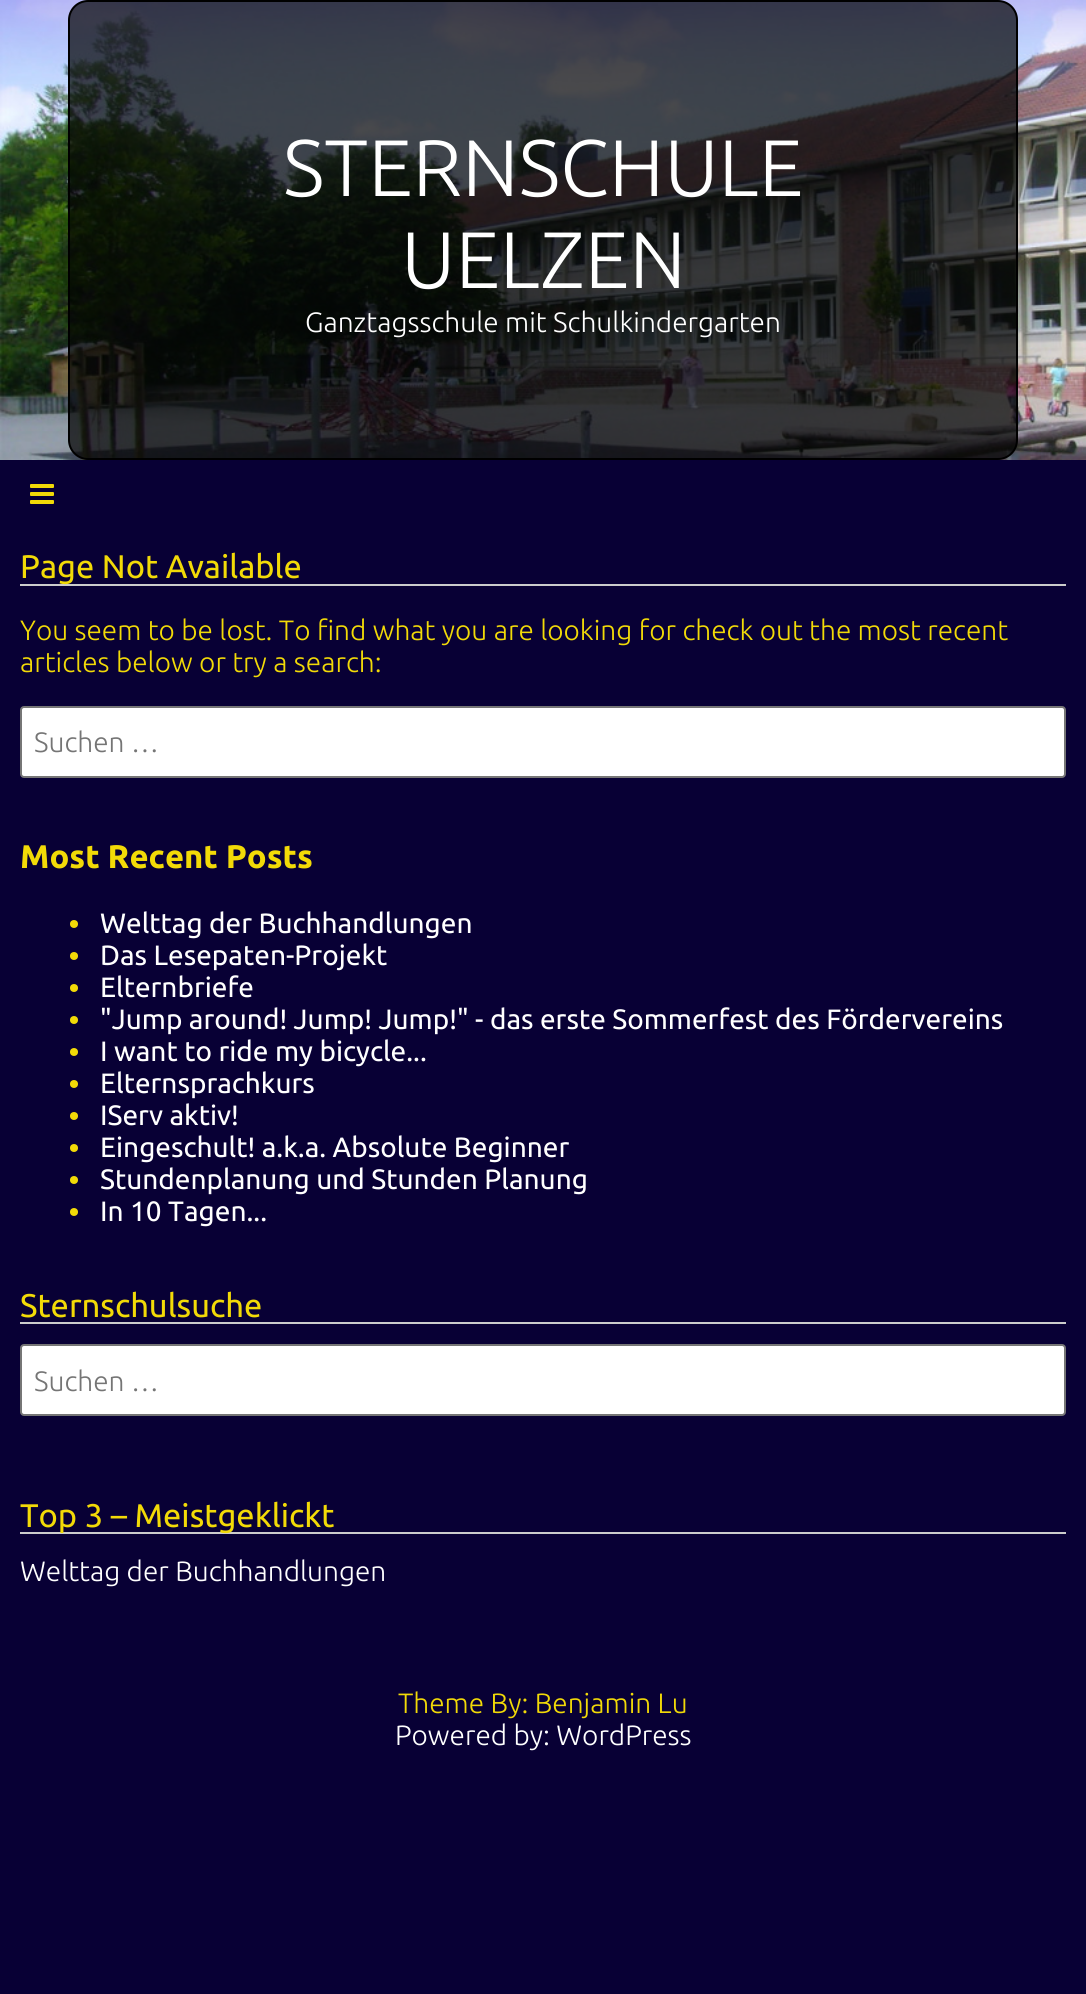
import math
import cairo


def use_color(cr, r, g, b):
  cr.set_source_rgb(r / 255, g / 255, b / 255)

def text(cr, x, y, s, family, size, color, bold=False, italic=False):
  cr.select_font_face(family, cairo.FONT_SLANT_ITALIC if italic else cairo.FONT_SLANT_NORMAL, cairo.FONT_WEIGHT_BOLD if bold else cairo.FONT_WEIGHT_NORMAL)
  cr.set_font_size(size)
  use_color(cr, *color)
  cr.move_to(x, y)
  cr.show_text(s)

def box(cr, x, y, w, h, *color):
  use_color(cr, *color)
  cr.rectangle(x, y, w, h)
  cr.fill()

def round_rect(cr, x, y, w, h, r):
  cr.new_sub_path()
  for i, (u, v) in enumerate([(x + w - r, y + h - r), (x + r, y + h - r), (x + r, y + r), (x + w - r, y + r)]):
    cr.arc(u, v, r, i * math.pi / 2, (i + 1) * math.pi / 2)
  cr.close_path()

def picture(cr, path, x, y, w, h):
  cr.save()
  cr.set_source_surface(cairo.ImageSurface.create_from_png(path), x, y)
  cr.rectangle(x, y, w, h)
  cr.fill()
  cr.restore()

def draw(cr):
  use_color(cr, 8, 0, 53)
  cr.paint()
  picture(cr, "img_01.png", 0, 0, 1086, 460)
  cr.set_source_rgba(0, 0, 0, 0.7)
  round_rect(cr, 69, 1, 948, 458, 19)
  cr.fill_preserve()
  use_color(cr, 0, 0, 0)
  cr.stroke()
  picture(cr, "img_02.png", 30, 484, 24, 20)
  box(cr, 20, 584, 1046, 2, 204, 204, 204)
  use_color(cr, 255, 255, 255)
  round_rect(cr, 21, 707, 1044, 70, 3)
  cr.fill_preserve()
  use_color(cr, 118, 118, 118)
  cr.stroke()
  use_color(cr, 242, 218, 7)
  cr.arc(74, 924, 4, 0, 2 * math.pi)
  cr.fill()
  cr.arc(74, 956, 4, 0, 2 * math.pi)
  cr.fill()
  cr.arc(74, 988, 4, 0, 2 * math.pi)
  cr.fill()
  cr.arc(74, 1020, 4, 0, 2 * math.pi)
  cr.fill()
  cr.arc(74, 1052, 4, 0, 2 * math.pi)
  cr.fill()
  cr.arc(74, 1084, 4, 0, 2 * math.pi)
  cr.fill()
  cr.arc(74, 1116, 4, 0, 2 * math.pi)
  cr.fill()
  cr.arc(74, 1148, 4, 0, 2 * math.pi)
  cr.fill()
  cr.arc(74, 1180, 4, 0, 2 * math.pi)
  cr.fill()
  cr.arc(74, 1212, 4, 0, 2 * math.pi)
  cr.fill()
  box(cr, 20, 1322, 1046, 2, 204, 204, 204)
  use_color(cr, 255, 255, 255)
  round_rect(cr, 21, 1345, 1044, 70, 3)
  cr.fill_preserve()
  use_color(cr, 118, 118, 118)
  cr.stroke()
  box(cr, 20, 1532, 1046, 2, 204, 204, 204)
  text(cr, 283, 196, "STERNSCHULE", "Ubuntu Light", 80, (255, 255, 255))
  text(cr, 401, 288, "UELZEN", "Ubuntu Light", 80, (255, 255, 255))
  text(cr, 305, 332, "Ganztagsschule mit Schulkindergarten", "Ubuntu Light", 28, (255, 255, 255))
  text(cr, 20, 578, "Page Not Available", "Ubuntu", 32.75, (242, 218, 7))
  text(cr, 20, 640, "You seem to be lost. To find what you are looking for check out the most recent", "Ubuntu Light", 28, (242, 218, 7))
  text(cr, 20, 672, "articles below or try a search:", "Ubuntu Light", 28, (242, 218, 7))
  text(cr, 34, 752, "Suchen …", "Ubuntu Light", 28, (117, 117, 117))
  text(cr, 20, 868, "Most Recent Posts", "Ubuntu", 32.75, (242, 218, 7), bold=True)
  text(cr, 100, 933, "Welttag der Buchhandlungen", "Ubuntu", 28, (255, 255, 255))
  text(cr, 100, 965, "Das Lesepaten-Projekt", "Ubuntu", 28, (255, 255, 255))
  text(cr, 100, 997, "Elternbriefe", "Ubuntu", 28, (255, 255, 255))
  text(cr, 100, 1029, "\"Jump around! Jump! Jump!\" - das erste Sommerfest des Fördervereins", "Ubuntu", 28, (255, 255, 255))
  text(cr, 100, 1061, "I want to ride my bicycle...", "Ubuntu", 28, (255, 255, 255))
  text(cr, 100, 1093, "Elternsprachkurs", "Ubuntu", 28, (255, 255, 255))
  text(cr, 100, 1125, "IServ aktiv!", "Ubuntu", 28, (255, 255, 255))
  text(cr, 100, 1157, "Eingeschult! a.k.a. Absolute Beginner", "Ubuntu", 28, (255, 255, 255))
  text(cr, 100, 1189, "Stundenplanung und Stunden Planung", "Ubuntu", 28, (255, 255, 255))
  text(cr, 100, 1221, "In 10 Tagen...", "Ubuntu", 28, (255, 255, 255))
  text(cr, 20, 1317, "Sternschulsuche", "Ubuntu", 32.75, (242, 218, 7))
  text(cr, 34, 1391, "Suchen …", "Ubuntu Light", 28, (117, 117, 117))
  text(cr, 20, 1527, "Top 3 – Meistgeklickt", "Ubuntu", 32.75, (242, 218, 7))
  text(cr, 20, 1581, "Welttag der Buchhandlungen", "Ubuntu Light", 28, (255, 255, 255))
  text(cr, 398, 1713, "Theme By: Benjamin Lu", "Ubuntu Light", 28, (242, 218, 7))
  text(cr, 395, 1745, "Powered by: WordPress", "Ubuntu Light", 28, (255, 255, 255))


surface = cairo.ImageSurface(cairo.FORMAT_RGB24, 1086, 1994)
cr = cairo.Context(surface)
options = cairo.FontOptions()
options.set_hint_metrics(cairo.HINT_METRICS_OFF)
options.set_hint_style(cairo.HINT_STYLE_NONE)
cr.set_font_options(options)
cr.set_miter_limit(4)
draw(cr)
surface.write_to_png("out.png")
